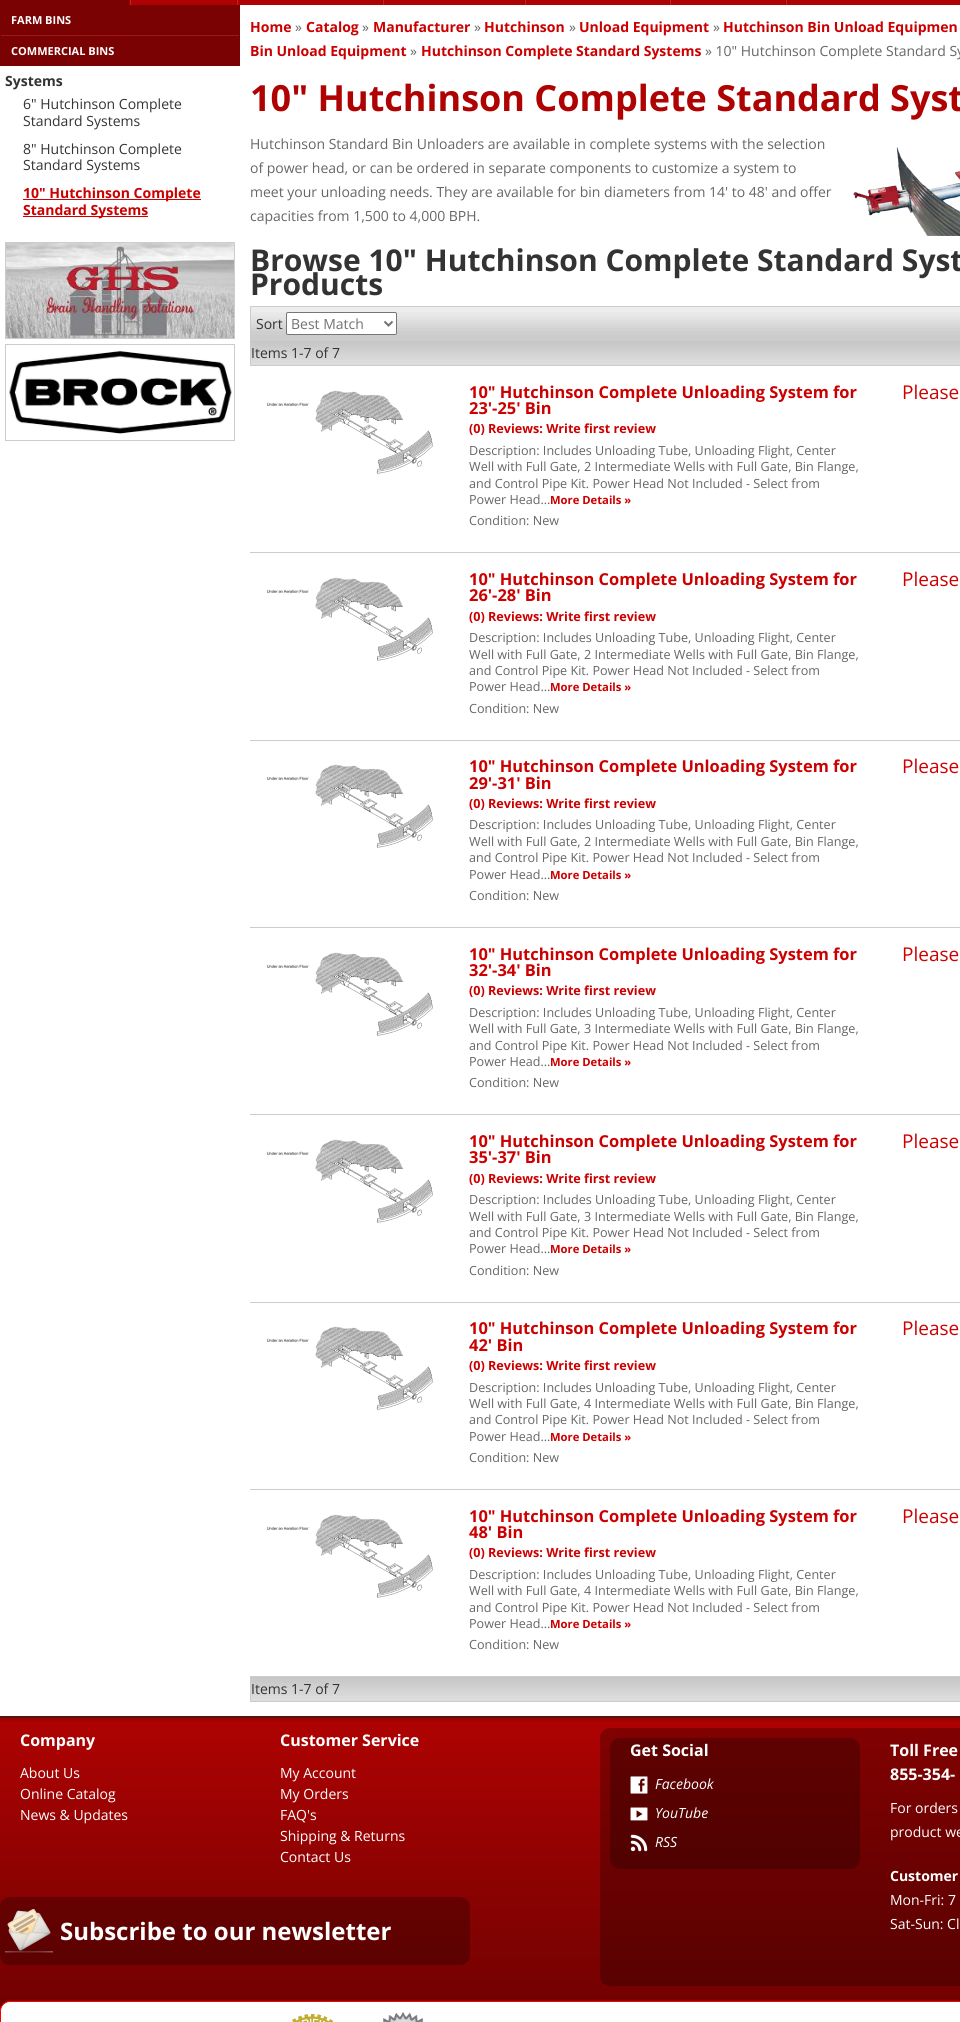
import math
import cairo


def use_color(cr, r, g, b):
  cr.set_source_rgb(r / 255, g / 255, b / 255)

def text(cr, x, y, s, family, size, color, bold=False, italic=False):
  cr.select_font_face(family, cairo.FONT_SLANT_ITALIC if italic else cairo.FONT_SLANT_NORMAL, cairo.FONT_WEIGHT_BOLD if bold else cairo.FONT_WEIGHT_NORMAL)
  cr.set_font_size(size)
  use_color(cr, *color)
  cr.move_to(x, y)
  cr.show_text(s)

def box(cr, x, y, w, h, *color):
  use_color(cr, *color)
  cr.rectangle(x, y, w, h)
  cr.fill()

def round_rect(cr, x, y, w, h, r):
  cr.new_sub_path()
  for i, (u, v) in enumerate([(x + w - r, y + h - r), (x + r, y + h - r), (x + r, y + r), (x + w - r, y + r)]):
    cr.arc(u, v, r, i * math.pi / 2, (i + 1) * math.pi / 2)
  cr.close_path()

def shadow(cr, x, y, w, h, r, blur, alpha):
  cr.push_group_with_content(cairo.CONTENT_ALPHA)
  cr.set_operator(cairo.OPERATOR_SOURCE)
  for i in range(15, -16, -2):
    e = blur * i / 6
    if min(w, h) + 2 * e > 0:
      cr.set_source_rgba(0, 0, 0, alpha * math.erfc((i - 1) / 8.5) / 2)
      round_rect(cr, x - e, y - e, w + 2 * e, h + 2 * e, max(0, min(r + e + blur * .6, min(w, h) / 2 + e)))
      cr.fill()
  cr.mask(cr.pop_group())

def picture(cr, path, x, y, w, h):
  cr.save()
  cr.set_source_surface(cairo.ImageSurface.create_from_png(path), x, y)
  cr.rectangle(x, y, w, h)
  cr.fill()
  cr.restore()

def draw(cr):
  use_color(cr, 255, 255, 255)
  cr.paint()
  gradient = cairo.LinearGradient(570, 1718, 570, 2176)
  gradient.add_color_stop_rgba(0, 0.686, 0.008, 0.008, 1)
  gradient.add_color_stop_rgba(1, 0.306, 0.004, 0.004, 1)
  cr.set_source(gradient)
  cr.rectangle(0, 1718, 960, 293)
  cr.fill()
  box(cr, 0, 1716, 960, 2, 115, 27, 19)
  use_color(cr, 0, 0, 0)
  shadow(cr, -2, 3, 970, 1715, 0, 2.5, 0.4)
  box(cr, 131, 0, 829, 5, 175, 2, 2)
  box(cr, 236, 0, 1, 5, 153, 0, 0)
  box(cr, 130, 0, 1, 5, 200, 35, 35)
  box(cr, 382, 0, 1, 5, 153, 0, 0)
  box(cr, 237, 0, 1, 5, 200, 35, 35)
  box(cr, 524, 0, 1, 5, 153, 0, 0)
  box(cr, 383, 0, 1, 5, 200, 35, 35)
  box(cr, 669, 0, 1, 5, 153, 0, 0)
  box(cr, 525, 0, 1, 5, 200, 35, 35)
  box(cr, 785, 0, 1, 5, 153, 0, 0)
  box(cr, 670, 0, 1, 5, 200, 35, 35)
  box(cr, 786, 0, 1, 5, 200, 35, 35)
  box(cr, 0, 0, 130, 5, 123, 2, 2)
  box(cr, 129, 0, 1, 5, 153, 0, 0)
  box(cr, 0, 5, 960, 1711, 255, 255, 255)
  box(cr, 0, 5, 240, 61, 123, 2, 2)
  box(cr, 1, 35, 238, 1, 155, 25, 25)
  box(cr, 23, 199, 178, 1, 204, 0, 0)
  box(cr, 23, 216, 125, 1, 204, 0, 0)
  cr.rectangle(5.5, 242.5, 229, 96)
  use_color(cr, 204, 204, 204)
  cr.set_line_width(1)
  cr.stroke()
  picture(cr, "img_01.png", 6, 243, 228, 95)
  cr.rectangle(5.5, 344.5, 229, 96)
  cr.stroke()
  picture(cr, "img_02.png", 9, 351, 223, 83)
  picture(cr, "img_03.png", 853, 147, 107, 89)
  box(cr, 251, 335, 709, 6, 204, 204, 204)
  picture(cr, "img_04.png", 251, 307, 709, 28)
  box(cr, 250, 306, 710, 1, 204, 204, 204)
  box(cr, 250, 306, 1, 35, 204, 204, 204)
  use_color(cr, 255, 255, 255)
  round_rect(cr, 286.5, 312.5, 110, 22, 1.5)
  cr.fill_preserve()
  use_color(cr, 118, 118, 118)
  cr.stroke()
  cr.new_path()
  cr.move_to(384.5, 321.5)
  cr.line_to(388.5, 325.5)
  cr.line_to(392.5, 321.5)
  use_color(cr, 112, 113, 113)
  cr.set_line_width(2)
  cr.stroke()
  picture(cr, "img_05.png", 251, 341, 709, 24)
  box(cr, 250, 365, 710, 1, 204, 204, 204)
  box(cr, 250, 341, 1, 25, 204, 204, 204)
  box(cr, 250, 552, 710, 1, 204, 204, 204)
  picture(cr, "img_06.png", 266, 390, 167, 84)
  box(cr, 250, 740, 710, 1, 204, 204, 204)
  picture(cr, "img_06.png", 266, 577, 167, 84)
  box(cr, 250, 927, 710, 1, 204, 204, 204)
  picture(cr, "img_06.png", 266, 764, 167, 84)
  box(cr, 250, 1114, 710, 1, 204, 204, 204)
  picture(cr, "img_06.png", 266, 952, 167, 84)
  box(cr, 250, 1302, 710, 1, 204, 204, 204)
  picture(cr, "img_06.png", 266, 1139, 167, 84)
  box(cr, 250, 1489, 710, 1, 204, 204, 204)
  picture(cr, "img_06.png", 266, 1326, 167, 84)
  box(cr, 250, 1676, 710, 1, 204, 204, 204)
  picture(cr, "img_06.png", 266, 1514, 167, 84)
  picture(cr, "img_05.png", 251, 1677, 709, 24)
  box(cr, 250, 1701, 710, 1, 204, 204, 204)
  box(cr, 250, 1677, 1, 25, 204, 204, 204)
  cr.set_source_rgba(0, 0, 0, 0.25)
  round_rect(cr, 0, 1897, 470, 68, 10)
  cr.fill()
  picture(cr, "img_07.png", 5, 1909, 48, 44)
  round_rect(cr, 600, 1728, 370, 258, 10)
  cr.fill()
  round_rect(cr, 610, 1738, 250, 131, 10)
  cr.fill()
  picture(cr, "img_08.png", 630, 1776, 18, 18)
  picture(cr, "img_09.png", 630, 1807, 18, 14)
  picture(cr, "img_10.png", 630, 1834, 18, 18)
  use_color(cr, 255, 255, 255)
  round_rect(cr, 0.5, 2001.5, 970, 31, 9.5)
  cr.fill_preserve()
  use_color(cr, 255, 0, 0)
  cr.set_line_width(1)
  cr.stroke()
  picture(cr, "img_11.png", 292, 2014, 42, 8)
  picture(cr, "img_12.png", 383, 2012, 41, 10)
  text(cr, 11, 24, "FARM BINS", "Open Sans", 11, (255, 255, 255), bold=True)
  text(cr, 11, 55, "COMMERCIAL BINS", "Open Sans", 11, (255, 255, 255), bold=True)
  text(cr, 5, 86, "Systems", "Open Sans", 14, (51, 51, 51), bold=True)
  text(cr, 23, 109, "6\" Hutchinson Complete", "Open Sans", 14, (51, 51, 51))
  text(cr, 23, 126, "Standard Systems", "Open Sans", 14, (51, 51, 51))
  text(cr, 23, 154, "8\" Hutchinson Complete", "Open Sans", 14, (51, 51, 51))
  text(cr, 23, 170, "Standard Systems", "Open Sans", 14, (51, 51, 51))
  text(cr, 23, 198, "10\" Hutchinson Complete", "Open Sans", 14, (204, 0, 0), bold=True)
  text(cr, 23, 215, "Standard Systems", "Open Sans", 14, (204, 0, 0), bold=True)
  text(cr, 250, 32, "Home", "Open Sans", 14, (204, 0, 0), bold=True)
  text(cr, 295, 32, "»", "Open Sans", 14, (102, 102, 102))
  text(cr, 306, 32, "Catalog", "Open Sans", 14, (204, 0, 0), bold=True)
  text(cr, 362, 32, "»", "Open Sans", 14, (102, 102, 102))
  text(cr, 373, 32, "Manufacturer", "Open Sans", 14, (204, 0, 0), bold=True)
  text(cr, 474, 32, "»", "Open Sans", 14, (102, 102, 102))
  text(cr, 484, 32, "Hutchinson", "Open Sans", 14, (204, 0, 0), bold=True)
  text(cr, 569, 32, "»", "Open Sans", 14, (102, 102, 102))
  text(cr, 579, 32, "Unload Equipment", "Open Sans", 14, (204, 0, 0), bold=True)
  text(cr, 713, 32, "»", "Open Sans", 14, (102, 102, 102))
  text(cr, 723, 32, "Hutchinson Bin Unload Equipmen", "Open Sans", 14, (204, 0, 0), bold=True)
  text(cr, 250, 56, "Bin Unload Equipment", "Open Sans", 14, (204, 0, 0), bold=True)
  text(cr, 410, 56, "»", "Open Sans", 14, (102, 102, 102))
  text(cr, 421, 56, "Hutchinson Complete Standard Systems", "Open Sans", 14, (204, 0, 0), bold=True)
  text(cr, 705, 56, "» 10\" Hutchinson Complete Standard Sy", "Open Sans", 14, (102, 102, 102))
  text(cr, 250, 111, "10\" Hutchinson Complete Standard Syst", "Open Sans", 36, (175, 2, 2), bold=True)
  text(cr, 250, 149, "Hutchinson Standard Bin Unloaders are available in complete systems with the selection", "Open Sans", 14, (102, 102, 102))
  text(cr, 250, 173, "of power head, or can be ordered in separate components to customize a system to", "Open Sans", 14, (102, 102, 102))
  text(cr, 250, 197, "meet your unloading needs. They are available for bin diameters from 14' to 48' and offer", "Open Sans", 14, (102, 102, 102))
  text(cr, 250, 221, "capacities from 1,500 to 4,000 BPH.", "Open Sans", 14, (102, 102, 102))
  text(cr, 250, 271, "Browse 10\" Hutchinson Complete Standard Syst", "Open Sans", 30, (51, 51, 51), bold=True)
  text(cr, 250, 295, "Products", "Open Sans", 30, (51, 51, 51), bold=True)
  text(cr, 256, 329, "Sort", "Open Sans", 14, (51, 51, 51))
  text(cr, 291, 329, "Best Match", "Open Sans", 14, (112, 113, 113))
  text(cr, 251, 358, "Items 1-7 of 7", "Open Sans", 14, (51, 51, 51))
  text(cr, 469, 398, "10\" Hutchinson Complete Unloading System for", "Open Sans", 16.4, (204, 0, 0), bold=True)
  text(cr, 469, 414, "23'-25' Bin", "Open Sans", 16.4, (204, 0, 0), bold=True)
  text(cr, 469, 433, "(0) Reviews: Write first review", "Open Sans", 12.6, (204, 0, 0), bold=True)
  text(cr, 469, 455, "Description: Includes Unloading Tube, Unloading Flight, Center", "Open Sans", 12.6, (102, 102, 102))
  text(cr, 469, 471, "Well with Full Gate, 2 Intermediate Wells with Full Gate, Bin Flange,", "Open Sans", 12.6, (102, 102, 102))
  text(cr, 469, 488, "and Control Pipe Kit. Power Head Not Included - Select from", "Open Sans", 12.6, (102, 102, 102))
  text(cr, 469, 504, "Power Head...", "Open Sans", 12.6, (102, 102, 102))
  text(cr, 550, 504, "More Details »", "Open Sans", 11.25, (204, 0, 0), bold=True)
  text(cr, 469, 525, "Condition: New", "Open Sans", 12.6, (102, 102, 102))
  text(cr, 902, 399, "Please", "Open Sans", 19, (204, 0, 0))
  text(cr, 469, 585, "10\" Hutchinson Complete Unloading System for", "Open Sans", 16.4, (204, 0, 0), bold=True)
  text(cr, 469, 601, "26'-28' Bin", "Open Sans", 16.4, (204, 0, 0), bold=True)
  text(cr, 469, 621, "(0) Reviews: Write first review", "Open Sans", 12.6, (204, 0, 0), bold=True)
  text(cr, 469, 642, "Description: Includes Unloading Tube, Unloading Flight, Center", "Open Sans", 12.6, (102, 102, 102))
  text(cr, 469, 659, "Well with Full Gate, 2 Intermediate Wells with Full Gate, Bin Flange,", "Open Sans", 12.6, (102, 102, 102))
  text(cr, 469, 675, "and Control Pipe Kit. Power Head Not Included - Select from", "Open Sans", 12.6, (102, 102, 102))
  text(cr, 469, 691, "Power Head...", "Open Sans", 12.6, (102, 102, 102))
  text(cr, 550, 691, "More Details »", "Open Sans", 11.25, (204, 0, 0), bold=True)
  text(cr, 469, 713, "Condition: New", "Open Sans", 12.6, (102, 102, 102))
  text(cr, 902, 586, "Please", "Open Sans", 19, (204, 0, 0))
  text(cr, 469, 772, "10\" Hutchinson Complete Unloading System for", "Open Sans", 16.4, (204, 0, 0), bold=True)
  text(cr, 469, 789, "29'-31' Bin", "Open Sans", 16.4, (204, 0, 0), bold=True)
  text(cr, 469, 808, "(0) Reviews: Write first review", "Open Sans", 12.6, (204, 0, 0), bold=True)
  text(cr, 469, 829, "Description: Includes Unloading Tube, Unloading Flight, Center", "Open Sans", 12.6, (102, 102, 102))
  text(cr, 469, 846, "Well with Full Gate, 2 Intermediate Wells with Full Gate, Bin Flange,", "Open Sans", 12.6, (102, 102, 102))
  text(cr, 469, 862, "and Control Pipe Kit. Power Head Not Included - Select from", "Open Sans", 12.6, (102, 102, 102))
  text(cr, 469, 879, "Power Head...", "Open Sans", 12.6, (102, 102, 102))
  text(cr, 550, 879, "More Details »", "Open Sans", 11.25, (204, 0, 0), bold=True)
  text(cr, 469, 900, "Condition: New", "Open Sans", 12.6, (102, 102, 102))
  text(cr, 902, 773, "Please", "Open Sans", 19, (204, 0, 0))
  text(cr, 469, 960, "10\" Hutchinson Complete Unloading System for", "Open Sans", 16.4, (204, 0, 0), bold=True)
  text(cr, 469, 976, "32'-34' Bin", "Open Sans", 16.4, (204, 0, 0), bold=True)
  text(cr, 469, 995, "(0) Reviews: Write first review", "Open Sans", 12.6, (204, 0, 0), bold=True)
  text(cr, 469, 1017, "Description: Includes Unloading Tube, Unloading Flight, Center", "Open Sans", 12.6, (102, 102, 102))
  text(cr, 469, 1033, "Well with Full Gate, 3 Intermediate Wells with Full Gate, Bin Flange,", "Open Sans", 12.6, (102, 102, 102))
  text(cr, 469, 1050, "and Control Pipe Kit. Power Head Not Included - Select from", "Open Sans", 12.6, (102, 102, 102))
  text(cr, 469, 1066, "Power Head...", "Open Sans", 12.6, (102, 102, 102))
  text(cr, 550, 1066, "More Details »", "Open Sans", 11.25, (204, 0, 0), bold=True)
  text(cr, 469, 1087, "Condition: New", "Open Sans", 12.6, (102, 102, 102))
  text(cr, 902, 961, "Please", "Open Sans", 19, (204, 0, 0))
  text(cr, 469, 1147, "10\" Hutchinson Complete Unloading System for", "Open Sans", 16.4, (204, 0, 0), bold=True)
  text(cr, 469, 1163, "35'-37' Bin", "Open Sans", 16.4, (204, 0, 0), bold=True)
  text(cr, 469, 1183, "(0) Reviews: Write first review", "Open Sans", 12.6, (204, 0, 0), bold=True)
  text(cr, 469, 1204, "Description: Includes Unloading Tube, Unloading Flight, Center", "Open Sans", 12.6, (102, 102, 102))
  text(cr, 469, 1221, "Well with Full Gate, 3 Intermediate Wells with Full Gate, Bin Flange,", "Open Sans", 12.6, (102, 102, 102))
  text(cr, 469, 1237, "and Control Pipe Kit. Power Head Not Included - Select from", "Open Sans", 12.6, (102, 102, 102))
  text(cr, 469, 1253, "Power Head...", "Open Sans", 12.6, (102, 102, 102))
  text(cr, 550, 1253, "More Details »", "Open Sans", 11.25, (204, 0, 0), bold=True)
  text(cr, 469, 1275, "Condition: New", "Open Sans", 12.6, (102, 102, 102))
  text(cr, 902, 1148, "Please", "Open Sans", 19, (204, 0, 0))
  text(cr, 469, 1334, "10\" Hutchinson Complete Unloading System for", "Open Sans", 16.4, (204, 0, 0), bold=True)
  text(cr, 469, 1351, "42' Bin", "Open Sans", 16.4, (204, 0, 0), bold=True)
  text(cr, 469, 1370, "(0) Reviews: Write first review", "Open Sans", 12.6, (204, 0, 0), bold=True)
  text(cr, 469, 1392, "Description: Includes Unloading Tube, Unloading Flight, Center", "Open Sans", 12.6, (102, 102, 102))
  text(cr, 469, 1408, "Well with Full Gate, 4 Intermediate Wells with Full Gate, Bin Flange,", "Open Sans", 12.6, (102, 102, 102))
  text(cr, 469, 1424, "and Control Pipe Kit. Power Head Not Included - Select from", "Open Sans", 12.6, (102, 102, 102))
  text(cr, 469, 1441, "Power Head...", "Open Sans", 12.6, (102, 102, 102))
  text(cr, 550, 1441, "More Details »", "Open Sans", 11.25, (204, 0, 0), bold=True)
  text(cr, 469, 1462, "Condition: New", "Open Sans", 12.6, (102, 102, 102))
  text(cr, 902, 1335, "Please", "Open Sans", 19, (204, 0, 0))
  text(cr, 469, 1522, "10\" Hutchinson Complete Unloading System for", "Open Sans", 16.4, (204, 0, 0), bold=True)
  text(cr, 469, 1538, "48' Bin", "Open Sans", 16.4, (204, 0, 0), bold=True)
  text(cr, 469, 1557, "(0) Reviews: Write first review", "Open Sans", 12.6, (204, 0, 0), bold=True)
  text(cr, 469, 1579, "Description: Includes Unloading Tube, Unloading Flight, Center", "Open Sans", 12.6, (102, 102, 102))
  text(cr, 469, 1595, "Well with Full Gate, 4 Intermediate Wells with Full Gate, Bin Flange,", "Open Sans", 12.6, (102, 102, 102))
  text(cr, 469, 1612, "and Control Pipe Kit. Power Head Not Included - Select from", "Open Sans", 12.6, (102, 102, 102))
  text(cr, 469, 1628, "Power Head...", "Open Sans", 12.6, (102, 102, 102))
  text(cr, 550, 1628, "More Details »", "Open Sans", 11.25, (204, 0, 0), bold=True)
  text(cr, 469, 1649, "Condition: New", "Open Sans", 12.6, (102, 102, 102))
  text(cr, 902, 1523, "Please", "Open Sans", 19, (204, 0, 0))
  text(cr, 251, 1694, "Items 1-7 of 7", "Open Sans", 14, (51, 51, 51))
  text(cr, 20, 1746, "Company", "Open Sans", 16, (255, 255, 255), bold=True)
  text(cr, 20, 1778, "About Us", "Open Sans", 14, (255, 255, 255))
  text(cr, 20, 1799, "Online Catalog", "Open Sans", 14, (255, 255, 255))
  text(cr, 20, 1820, "News & Updates", "Open Sans", 14, (255, 255, 255))
  text(cr, 280, 1746, "Customer Service", "Open Sans", 16, (255, 255, 255), bold=True)
  text(cr, 280, 1778, "My Account", "Open Sans", 14, (255, 255, 255))
  text(cr, 280, 1799, "My Orders", "Open Sans", 14, (255, 255, 255))
  text(cr, 280, 1820, "FAQ's", "Open Sans", 14, (255, 255, 255))
  text(cr, 280, 1841, "Shipping & Returns", "Open Sans", 14, (255, 255, 255))
  text(cr, 280, 1862, "Contact Us", "Open Sans", 14, (255, 255, 255))
  text(cr, 60, 1940, "Subscribe to our newsletter", "Open Sans", 24, (255, 255, 255), bold=True)
  text(cr, 630, 1756, "Get Social", "Open Sans", 16, (255, 255, 255), bold=True)
  text(cr, 655, 1789, "Facebook", "Open Sans", 14, (255, 255, 255), italic=True)
  text(cr, 655, 1818, "YouTube", "Open Sans", 14, (255, 255, 255), italic=True)
  text(cr, 655, 1847, "RSS", "Open Sans", 14, (255, 255, 255), italic=True)
  text(cr, 890, 1756, "Toll Free", "Open Sans", 16, (255, 255, 255), bold=True)
  text(cr, 890, 1780, "855-354-", "Open Sans", 16, (255, 255, 255), bold=True)
  text(cr, 890, 1813, "For orders", "Open Sans", 14, (255, 255, 255))
  text(cr, 890, 1837, "product we", "Open Sans", 14, (255, 255, 255))
  text(cr, 890, 1881, "Customer", "Open Sans", 14, (255, 255, 255), bold=True)
  text(cr, 890, 1905, "Mon-Fri: 7", "Open Sans", 14, (255, 255, 255))
  text(cr, 890, 1929, "Sat-Sun: Cl", "Open Sans", 14, (255, 255, 255))


surface = cairo.ImageSurface(cairo.FORMAT_RGB24, 960, 2022)
cr = cairo.Context(surface)
options = cairo.FontOptions()
options.set_hint_metrics(cairo.HINT_METRICS_OFF)
options.set_hint_style(cairo.HINT_STYLE_NONE)
cr.set_font_options(options)
cr.set_miter_limit(4)
draw(cr)
surface.write_to_png("out.png")
